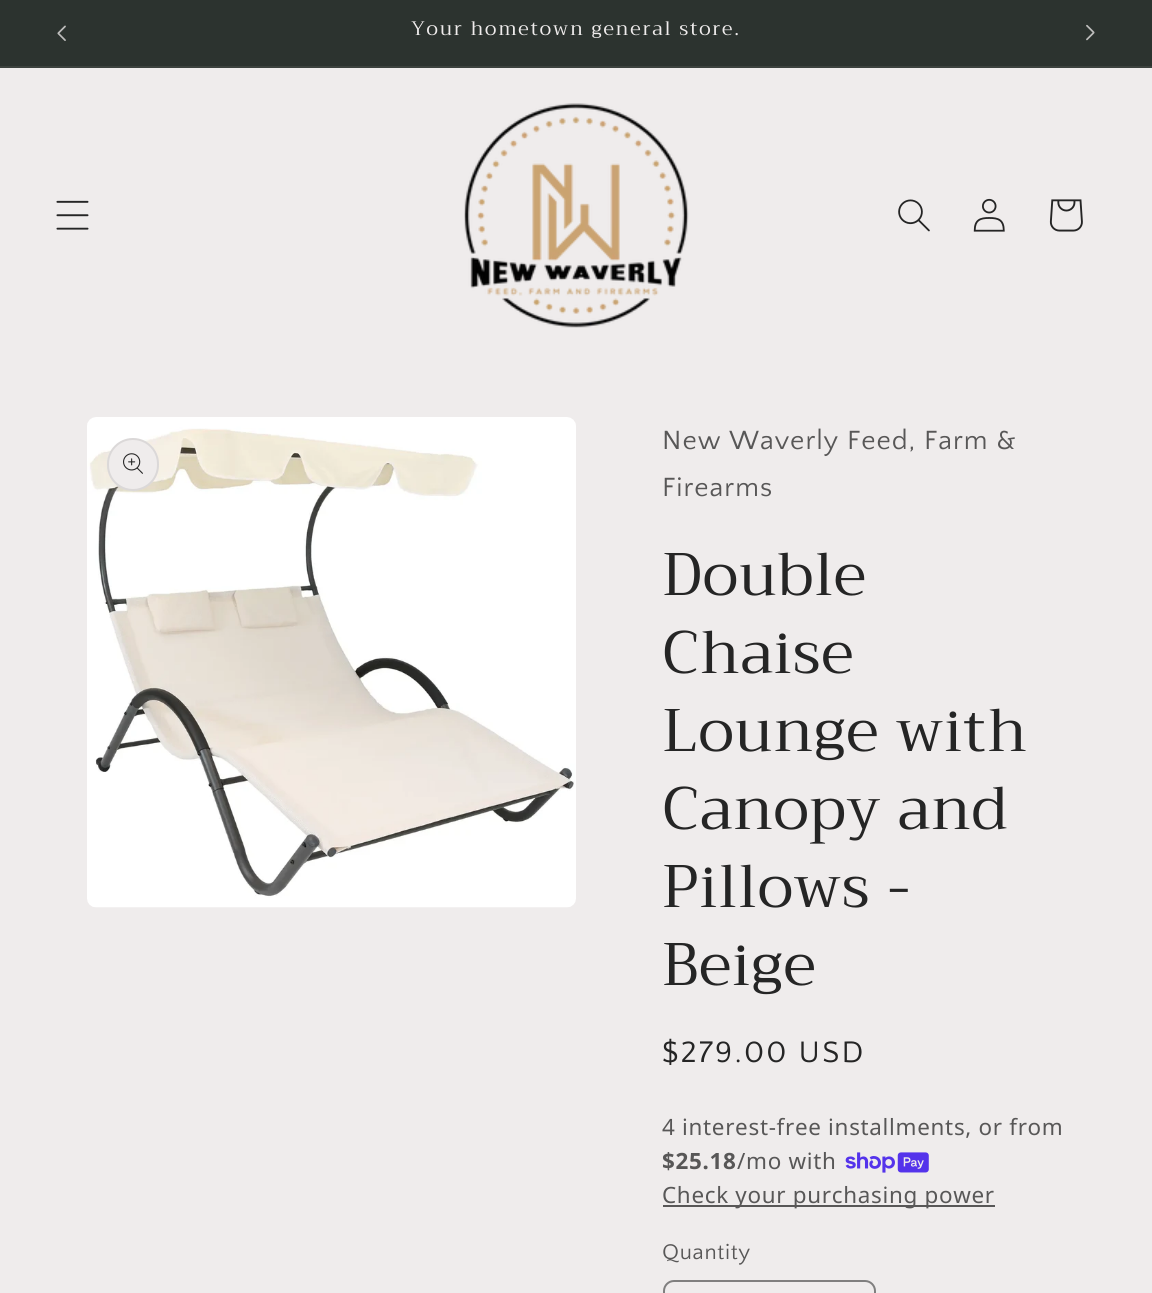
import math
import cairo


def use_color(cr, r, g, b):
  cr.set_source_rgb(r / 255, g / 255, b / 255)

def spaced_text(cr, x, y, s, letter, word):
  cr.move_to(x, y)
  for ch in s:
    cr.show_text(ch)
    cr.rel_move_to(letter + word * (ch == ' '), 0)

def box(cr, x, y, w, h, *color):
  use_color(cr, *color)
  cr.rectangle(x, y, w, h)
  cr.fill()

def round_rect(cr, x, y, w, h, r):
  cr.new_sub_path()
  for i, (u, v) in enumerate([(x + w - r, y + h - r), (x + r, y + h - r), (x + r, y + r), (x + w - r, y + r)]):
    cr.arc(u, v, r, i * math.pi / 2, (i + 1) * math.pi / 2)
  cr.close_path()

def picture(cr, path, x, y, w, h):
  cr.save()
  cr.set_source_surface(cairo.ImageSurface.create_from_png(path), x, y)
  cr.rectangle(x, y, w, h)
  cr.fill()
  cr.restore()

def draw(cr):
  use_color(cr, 239, 236, 236)
  cr.paint()
  box(cr, 0, 0, 1152, 66, 44, 51, 47)
  box(cr, 0, 66, 1152, 2, 60, 66, 62)
  picture(cr, "img_01.png", 57, 25, 9, 16)
  picture(cr, "img_02.png", 1086, 24, 9, 17)
  picture(cr, "img_03.png", 56, 200, 33, 30)
  picture(cr, "img_04.png", 464, 103, 225, 225)
  picture(cr, "img_05.png", 898, 199, 32, 33)
  picture(cr, "img_06.png", 973, 198, 32, 34)
  picture(cr, "img_07.png", 1049, 199, 34, 33)
  picture(cr, "img_08.png", 87, 417, 489, 491)
  use_color(cr, 239, 236, 236)
  round_rect(cr, 107, 438, 52, 53, 26)
  cr.fill()
  round_rect(cr, 108, 439, 50, 51, 25)
  cr.set_source_rgba(0.145, 0.145, 0.145, 0.1)
  cr.stroke()
  picture(cr, "img_09.png", 123, 453, 20, 21)
  picture(cr, "img_10.png", 845, 1152, 84, 21)
  box(cr, 663, 1205, 332, 2, 88, 87, 87)
  round_rect(cr, 664, 1281, 211, 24, 10)
  use_color(cr, 128, 127, 127)
  cr.stroke()
  cr.select_font_face("Trirong")
  cr.set_font_size(19.5)
  use_color(cr, 239, 236, 236)
  spaced_text(cr, 411, 35, "Your hometown general store.", 1.75, 0)
  cr.select_font_face("Quattrocento Sans")
  cr.set_font_size(27.6)
  use_color(cr, 88, 87, 87)
  spaced_text(cr, 662, 449, "New Waverly Feed, Farm &", 1, 0)
  spaced_text(cr, 662, 496, "Firearms", 1, 0)
  cr.select_font_face("Trirong")
  cr.set_font_size(60)
  use_color(cr, 37, 37, 37)
  spaced_text(cr, 662, 595, "Double", 0.9, 0)
  spaced_text(cr, 662, 673, "Chaise", 0.9, 0)
  spaced_text(cr, 662, 751, "Lounge with", 0.9, 0)
  spaced_text(cr, 662, 829, "Canopy and", 0.9, 0)
  spaced_text(cr, 662, 907, "Pillows -", 0.9, 0)
  spaced_text(cr, 662, 985, "Beige", 0.9, 0)
  cr.select_font_face("Quattrocento Sans")
  cr.set_font_size(31)
  spaced_text(cr, 662, 1062, "$279.00 USD", 2.25, 0)
  cr.select_font_face("Noto Sans")
  cr.set_font_size(22.4)
  use_color(cr, 88, 87, 87)
  spaced_text(cr, 662, 1135, "4 interest-free installments, or from", 0.7, 0)
  cr.select_font_face("Noto Sans", cairo.FONT_SLANT_NORMAL, cairo.FONT_WEIGHT_BOLD)
  spaced_text(cr, 662, 1169, "$25.18", 0.7, 0)
  cr.select_font_face("Noto Sans")
  spaced_text(cr, 737, 1169, "/mo with", 0.7, 0)
  spaced_text(cr, 662, 1203, "Check your purchasing power", 0.7, 0)
  cr.select_font_face("Quattrocento Sans")
  spaced_text(cr, 662, 1259, "Quantity", 0.7, 0)


surface = cairo.ImageSurface(cairo.FORMAT_RGB24, 1152, 1293)
cr = cairo.Context(surface)
options = cairo.FontOptions()
options.set_hint_metrics(cairo.HINT_METRICS_OFF)
options.set_hint_style(cairo.HINT_STYLE_NONE)
cr.set_font_options(options)
cr.set_miter_limit(4)
draw(cr)
surface.write_to_png("out.png")
